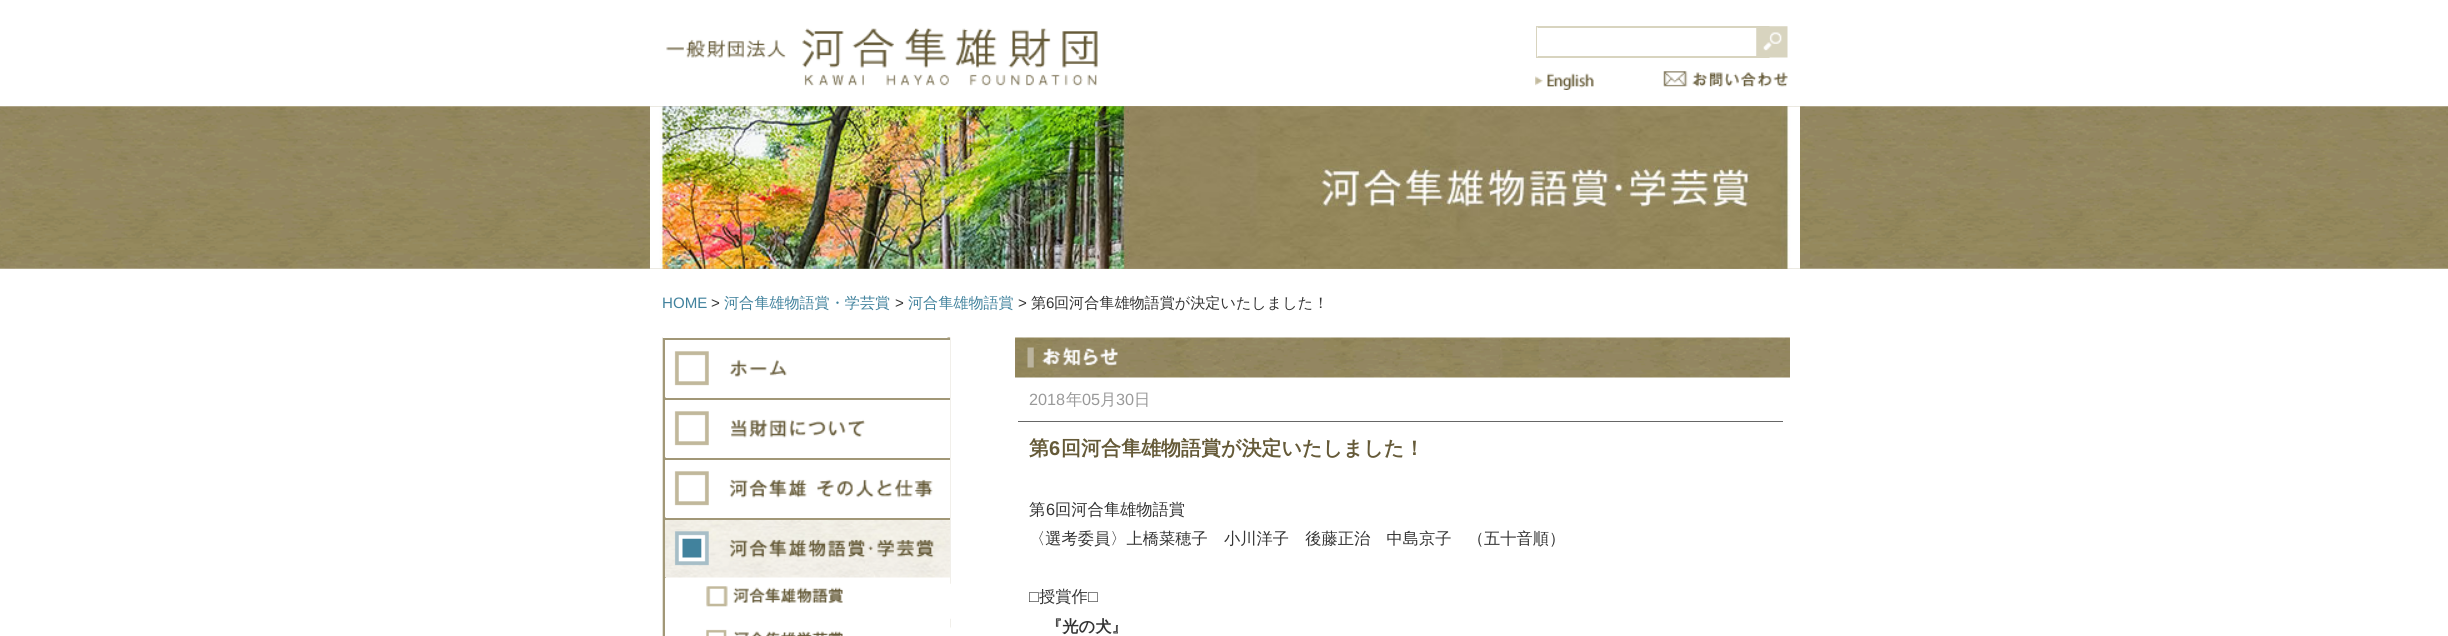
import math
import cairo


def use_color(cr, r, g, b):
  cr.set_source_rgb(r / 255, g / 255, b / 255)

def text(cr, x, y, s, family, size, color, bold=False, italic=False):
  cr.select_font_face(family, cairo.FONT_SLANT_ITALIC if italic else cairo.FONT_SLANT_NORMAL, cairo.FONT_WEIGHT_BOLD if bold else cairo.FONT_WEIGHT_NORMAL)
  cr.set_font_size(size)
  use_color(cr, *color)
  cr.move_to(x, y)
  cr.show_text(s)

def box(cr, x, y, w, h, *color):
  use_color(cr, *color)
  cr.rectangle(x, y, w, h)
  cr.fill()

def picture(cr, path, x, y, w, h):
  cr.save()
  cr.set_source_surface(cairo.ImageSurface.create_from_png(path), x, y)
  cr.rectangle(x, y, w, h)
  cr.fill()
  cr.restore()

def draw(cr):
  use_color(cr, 255, 255, 255)
  cr.paint()
  picture(cr, "img_01.png", 666, 27, 432, 59)
  use_color(cr, 216, 212, 191)
  cr.new_path()
  cr.move_to(1536, 26)
  cr.line_to(1770, 26)
  cr.line_to(1768, 28)
  cr.line_to(1538, 28)
  cr.close_path()
  cr.fill()
  cr.new_path()
  cr.move_to(1770, 58)
  cr.line_to(1536, 58)
  cr.line_to(1538, 56)
  cr.line_to(1768, 56)
  cr.close_path()
  cr.fill()
  box(cr, 1536, 26, 1, 32, 216, 212, 191)
  picture(cr, "img_02.png", 1756, 26, 32, 32)
  picture(cr, "img_03.png", 1663, 71, 125, 16)
  picture(cr, "img_04.png", 1535, 73, 59, 17)
  picture(cr, "img_05.png", 0, 106, 2448, 163)
  picture(cr, "img_06.png", 650, 106, 1150, 163)
  picture(cr, "img_07.png", 662, 337, 289, 299)
  box(cr, 663, 338, 287, 2, 161, 151, 119)
  box(cr, 947, 340, 3, 238, 255, 255, 255)
  box(cr, 663, 398, 287, 2, 161, 151, 119)
  box(cr, 663, 340, 3, 60, 161, 151, 119)
  picture(cr, "img_08.png", 665, 340, 122, 58)
  box(cr, 663, 458, 287, 2, 161, 151, 119)
  box(cr, 663, 400, 3, 60, 161, 151, 119)
  picture(cr, "img_09.png", 665, 400, 285, 58)
  box(cr, 663, 518, 287, 2, 161, 151, 119)
  box(cr, 663, 460, 3, 176, 161, 151, 119)
  picture(cr, "img_10.png", 665, 460, 285, 58)
  picture(cr, "img_11.png", 665, 520, 285, 58)
  box(cr, 665, 578, 285, 58, 255, 255, 255)
  picture(cr, "img_12.png", 706, 583, 245, 36)
  picture(cr, "img_13.png", 706, 627, 245, 9)
  picture(cr, "img_14.png", 1015, 337, 775, 41)
  box(cr, 1018, 421, 765, 1, 102, 102, 102)
  text(cr, 662, 308, "HOME", "Liberation Sans", 15.1, (65, 130, 157))
  text(cr, 711, 308, ">", "Liberation Sans", 15.1, (51, 51, 51))
  text(cr, 724, 308, "河合隼雄物語賞・学芸賞", "WenQuanYi Zen Hei Medium", 15.1, (65, 130, 157))
  text(cr, 895, 308, ">", "Liberation Sans", 15.1, (51, 51, 51))
  text(cr, 908, 308, "河合隼雄物語賞", "WenQuanYi Zen Hei Medium", 15.1, (65, 130, 157))
  text(cr, 1018, 308, ">", "Liberation Sans", 15.1, (51, 51, 51))
  text(cr, 1031, 308, "第", "WenQuanYi Zen Hei Medium", 15.1, (51, 51, 51))
  text(cr, 1046, 308, "6", "Liberation Sans", 15.1, (51, 51, 51))
  text(cr, 1054, 308, "回河合隼雄物語賞が決定いたしました！", "WenQuanYi Zen Hei Medium", 15.1, (51, 51, 51))
  text(cr, 1029, 405, "2018", "Liberation Sans", 16.25, (153, 153, 153))
  text(cr, 1066, 405, "年", "WenQuanYi Zen Hei Medium", 16.25, (153, 153, 153))
  text(cr, 1082, 405, "05", "Liberation Sans", 16.25, (153, 153, 153))
  text(cr, 1100, 405, "月", "WenQuanYi Zen Hei Medium", 16.25, (153, 153, 153))
  text(cr, 1116, 405, "30", "Liberation Sans", 16.25, (153, 153, 153))
  text(cr, 1134, 405, "日", "WenQuanYi Zen Hei Medium", 16.25, (153, 153, 153))
  text(cr, 1029, 455, "第", "WenQuanYi Zen Hei", 20, (101, 90, 56), bold=True)
  text(cr, 1049, 455, "6", "Liberation Sans", 20, (101, 90, 56), bold=True)
  text(cr, 1061, 455, "回河合隼雄物語賞が決定いたしました！", "WenQuanYi Zen Hei", 20, (101, 90, 56), bold=True)
  text(cr, 1029, 515, "第", "WenQuanYi Zen Hei Medium", 16.25, (51, 51, 51))
  text(cr, 1046, 515, "6", "Liberation Sans", 16.25, (51, 51, 51))
  text(cr, 1055, 515, "回河合隼雄物語賞", "WenQuanYi Zen Hei Medium", 16.25, (51, 51, 51))
  text(cr, 1029, 544, "〈選考委員〉上橋菜穂子　小川洋子　後藤正治　中島京子　（五十音順）", "WenQuanYi Zen Hei Medium", 16.25, (51, 51, 51))
  text(cr, 1029, 602, "□", "Liberation Sans", 16.25, (51, 51, 51))
  text(cr, 1039, 602, "授賞作", "WenQuanYi Zen Hei Medium", 16.25, (51, 51, 51))
  text(cr, 1088, 602, "□", "Liberation Sans", 16.25, (51, 51, 51))
  text(cr, 1046, 632, "『光の犬』", "WenQuanYi Zen Hei", 16.25, (51, 51, 51), bold=True)


surface = cairo.ImageSurface(cairo.FORMAT_RGB24, 2448, 636)
cr = cairo.Context(surface)
options = cairo.FontOptions()
options.set_hint_metrics(cairo.HINT_METRICS_OFF)
options.set_hint_style(cairo.HINT_STYLE_NONE)
cr.set_font_options(options)
cr.set_miter_limit(4)
draw(cr)
surface.write_to_png("out.png")
